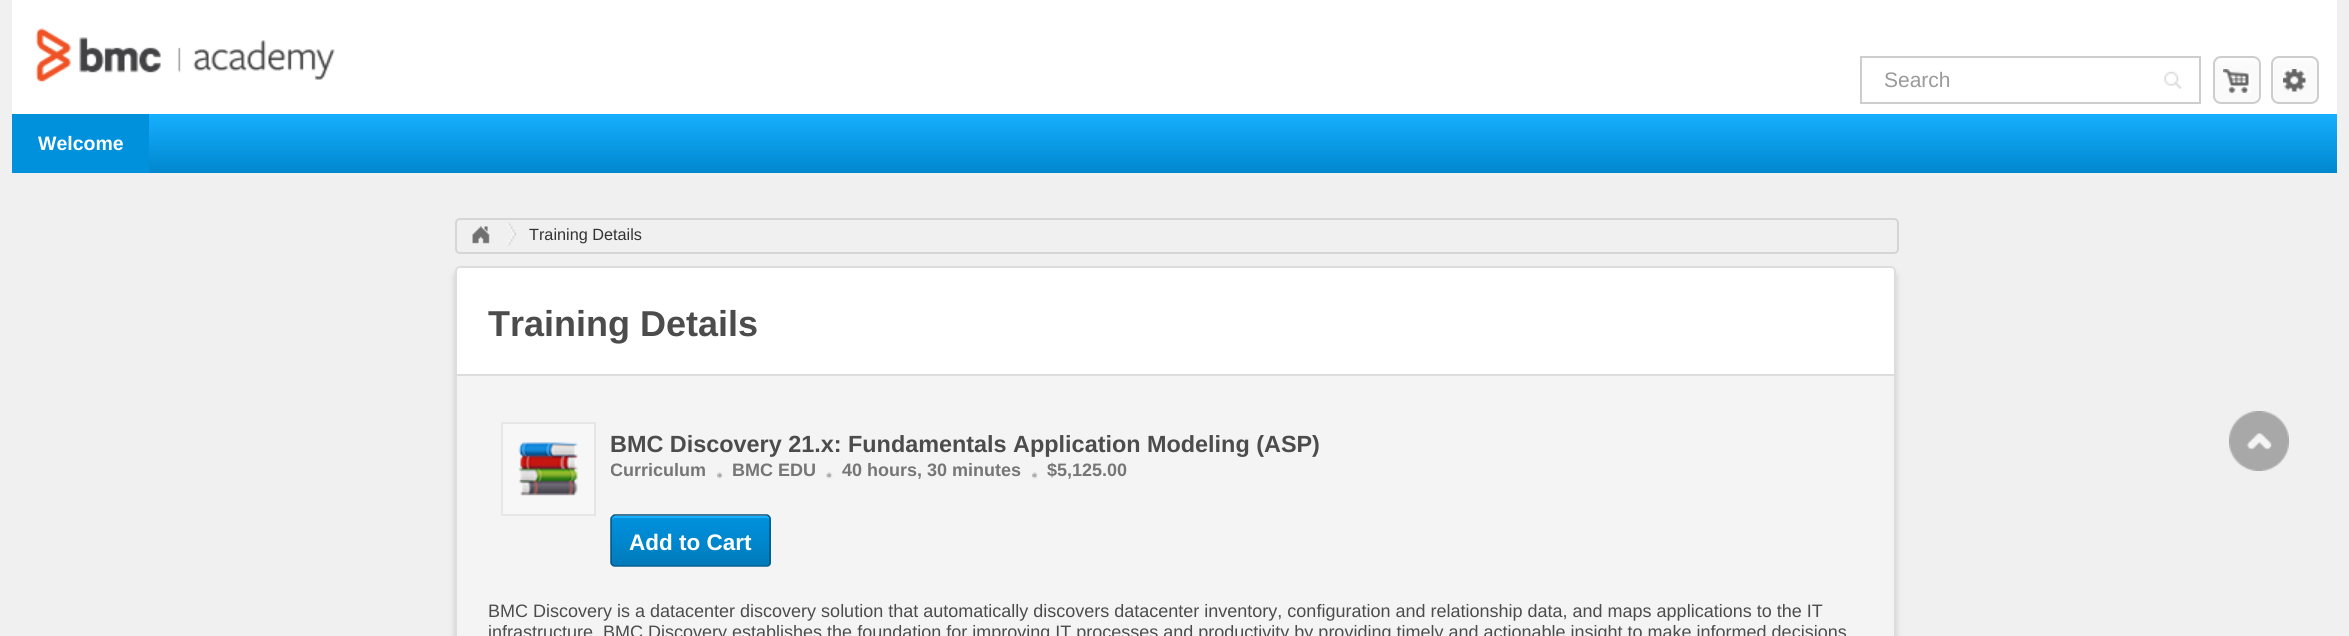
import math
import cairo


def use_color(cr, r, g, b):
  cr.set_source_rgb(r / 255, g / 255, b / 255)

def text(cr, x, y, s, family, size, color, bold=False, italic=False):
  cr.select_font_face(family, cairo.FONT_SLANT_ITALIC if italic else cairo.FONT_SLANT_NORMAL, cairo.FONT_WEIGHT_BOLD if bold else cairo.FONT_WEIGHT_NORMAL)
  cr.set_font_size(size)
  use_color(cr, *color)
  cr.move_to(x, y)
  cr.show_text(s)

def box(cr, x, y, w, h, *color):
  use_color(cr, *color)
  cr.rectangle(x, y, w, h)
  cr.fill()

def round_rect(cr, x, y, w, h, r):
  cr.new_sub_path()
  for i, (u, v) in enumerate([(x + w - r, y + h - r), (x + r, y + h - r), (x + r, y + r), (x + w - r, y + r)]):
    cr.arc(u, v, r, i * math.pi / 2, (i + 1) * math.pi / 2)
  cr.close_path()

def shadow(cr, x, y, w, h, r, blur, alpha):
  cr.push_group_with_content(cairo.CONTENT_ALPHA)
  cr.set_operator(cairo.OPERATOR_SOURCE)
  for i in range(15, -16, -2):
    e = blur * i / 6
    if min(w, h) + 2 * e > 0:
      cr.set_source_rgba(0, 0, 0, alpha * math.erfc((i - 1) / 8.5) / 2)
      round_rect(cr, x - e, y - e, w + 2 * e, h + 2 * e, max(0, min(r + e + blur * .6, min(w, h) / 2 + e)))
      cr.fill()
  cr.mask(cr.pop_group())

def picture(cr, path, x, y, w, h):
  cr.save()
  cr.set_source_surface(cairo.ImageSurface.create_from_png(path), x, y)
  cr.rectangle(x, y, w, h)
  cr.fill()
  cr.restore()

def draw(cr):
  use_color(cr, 240, 240, 240)
  cr.paint()
  box(cr, 12, 0, 2325, 114, 255, 255, 255)
  picture(cr, "img_01.png", 35, 28, 300, 54)
  cr.rectangle(1861, 57, 339, 46)
  use_color(cr, 205, 205, 205)
  cr.stroke()
  picture(cr, "img_02.png", 2164, 71, 18, 18)
  cr.save()
  round_rect(cr, 2213, 56, 48, 48, 8)
  cr.clip()
  gradient = cairo.LinearGradient(2237, 57, 2237, 102)
  gradient.add_color_stop_rgba(0, 1, 1, 1, 1)
  gradient.add_color_stop_rgba(0.2, 0.98, 0.98, 0.98, 1)
  cr.set_source(gradient)
  cr.rectangle(2213, 57, 48, 45)
  cr.fill()
  cr.restore()
  round_rect(cr, 2214, 57, 46, 46, 7)
  cr.stroke()
  picture(cr, "img_03.png", 2223, 69, 28, 24)
  cr.save()
  round_rect(cr, 2271, 56, 48, 48, 8)
  cr.clip()
  gradient = cairo.LinearGradient(2295, 57, 2295, 102)
  gradient.add_color_stop_rgba(0, 1, 1, 1, 1)
  gradient.add_color_stop_rgba(0.2, 0.98, 0.98, 0.98, 1)
  cr.set_source(gradient)
  cr.rectangle(2271, 57, 48, 45)
  cr.fill()
  cr.restore()
  round_rect(cr, 2272, 57, 46, 46, 7)
  cr.stroke()
  picture(cr, "img_04.png", 2283, 69, 23, 23)
  gradient = cairo.LinearGradient(1175, 114, 1175, 173)
  gradient.add_color_stop_rgba(0, 0.086, 0.686, 1, 1)
  gradient.add_color_stop_rgba(1, 0, 0.529, 0.808, 1)
  cr.set_source(gradient)
  cr.rectangle(149, 114, 2188, 59)
  cr.fill()
  box(cr, 12, 114, 137, 59, 0, 145, 221)
  round_rect(cr, 456, 219, 1442, 34, 4)
  use_color(cr, 213, 213, 213)
  cr.stroke()
  picture(cr, "img_05.png", 472, 226, 18, 18)
  picture(cr, "img_06.png", 507, 222, 9, 24)
  use_color(cr, 199, 199, 199)
  shadow(cr, 455, 272, 1441, 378, 5, 3, 1)
  use_color(cr, 255, 255, 255)
  round_rect(cr, 456, 267, 1439, 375, 4)
  cr.fill_preserve()
  use_color(cr, 221, 221, 221)
  cr.stroke()
  use_color(cr, 244, 244, 244)
  cr.rectangle(456, 375, 1439, 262)
  cr.fill_preserve()
  use_color(cr, 221, 221, 221)
  cr.stroke()
  box(cr, 503, 424, 91, 90, 247, 247, 247)
  picture(cr, "img_07.png", 518, 442, 60, 54)
  cr.rectangle(502, 423, 93, 92)
  use_color(cr, 230, 230, 230)
  cr.stroke()
  picture(cr, "img_08.png", 717, 472, 6, 7)
  picture(cr, "img_09.png", 826, 472, 7, 7)
  picture(cr, "img_10.png", 1032, 472, 6, 7)
  cr.save()
  round_rect(cr, 611, 515, 160, 52, 5)
  cr.clip()
  gradient = cairo.LinearGradient(691, 516, 691, 566)
  gradient.add_color_stop_rgba(0, 0, 0.569, 0.867, 1)
  gradient.add_color_stop_rgba(0.5, 0, 0.529, 0.808, 1)
  gradient.add_color_stop_rgba(1, 0, 0.478, 0.725, 1)
  cr.set_source(gradient)
  cr.rectangle(611, 516, 160, 50)
  cr.fill()
  cr.restore()
  use_color(cr, 22, 175, 255)
  cr.new_path()
  cr.move_to(615, 518)
  cr.line_to(766, 518)
  cr.curve_to(768, 518, 770, 519, 770, 520)
  cr.curve_to(770, 518, 769, 516, 767, 516)
  cr.line_to(614, 516)
  cr.curve_to(612, 516, 612, 518, 612, 520)
  cr.curve_to(612, 519, 613, 518, 615, 518)
  cr.close_path()
  cr.fill()
  cr.new_path()
  cr.move_to(612.5, 516.5)
  cr.curve_to(613, 515.5, 614, 515, 615, 515)
  cr.line_to(766.5, 515)
  cr.curve_to(767.5, 515, 768.5, 515.5, 769, 516.5)
  use_color(cr, 0, 78, 119)
  cr.set_line_width(1.5)
  cr.stroke()
  cr.new_path()
  cr.move_to(769, 516.5)
  cr.curve_to(770, 517, 770, 518, 770, 519)
  cr.line_to(770, 562.5)
  cr.curve_to(770, 563.5, 770, 564.5, 769, 565)
  use_color(cr, 0, 85, 129)
  cr.stroke()
  cr.new_path()
  cr.move_to(769, 565)
  cr.curve_to(768.5, 566, 767.5, 566, 766.5, 566)
  cr.line_to(615, 566)
  cr.curve_to(614, 566, 613, 566, 612.5, 565)
  use_color(cr, 0, 95, 145)
  cr.stroke()
  cr.new_path()
  cr.move_to(612.5, 565)
  cr.curve_to(611.5, 564.5, 611, 563.5, 611, 562.5)
  cr.line_to(611, 519)
  cr.curve_to(611, 518, 611.5, 517, 612.5, 516.5)
  use_color(cr, 0, 85, 129)
  cr.stroke()
  picture(cr, "img_11.png", 2229, 411, 60, 60)
  text(cr, 1884, 87, "Search", "Liberation Sans", 21, (154, 154, 154))
  text(cr, 38, 150, "Welcome", "Liberation Sans", 19.5, (255, 255, 255), bold=True)
  text(cr, 529, 240, "Training Details", "Liberation Sans", 16.25, (51, 51, 51))
  text(cr, 488, 336, "Training Details", "Liberation Sans", 36, (76, 76, 76), bold=True)
  text(cr, 610, 452, "BMC Discovery 21.x: Fundamentals Application Modeling (ASP)", "Liberation Sans", 23.4, (76, 76, 76), bold=True)
  cr.save()
  cr.rectangle(611, 428, 1236, 87)
  cr.clip()
  text(cr, 610, 476, "Curriculum", "Liberation Sans", 18, (118, 118, 118), bold=True)
  cr.restore()
  text(cr, 732, 476, "BMC EDU", "Liberation Sans", 18, (118, 118, 118), bold=True)
  text(cr, 842, 476, "40 hours, 30 minutes", "Liberation Sans", 18, (118, 118, 118), bold=True)
  text(cr, 1047, 476, "$5,125.00", "Liberation Sans", 18, (118, 118, 118), bold=True)
  text(cr, 629, 550, "Add to Cart", "Liberation Sans", 22.5, (255, 255, 255), bold=True)
  text(cr, 488, 617, "BMC Discovery is a datacenter discovery solution that automatically discovers datacenter inventory, configuration and relationship data, and maps applications to the IT", "Liberation Sans", 18, (76, 76, 76))
  text(cr, 488, 638, "infrastructure. BMC Discovery establishes the foundation for improving IT processes and productivity by providing timely and actionable insight to make informed decisions", "Liberation Sans", 18, (76, 76, 76))


surface = cairo.ImageSurface(cairo.FORMAT_RGB24, 2349, 636)
cr = cairo.Context(surface)
options = cairo.FontOptions()
options.set_hint_metrics(cairo.HINT_METRICS_OFF)
options.set_hint_style(cairo.HINT_STYLE_NONE)
cr.set_font_options(options)
cr.set_miter_limit(4)
draw(cr)
surface.write_to_png("out.png")
